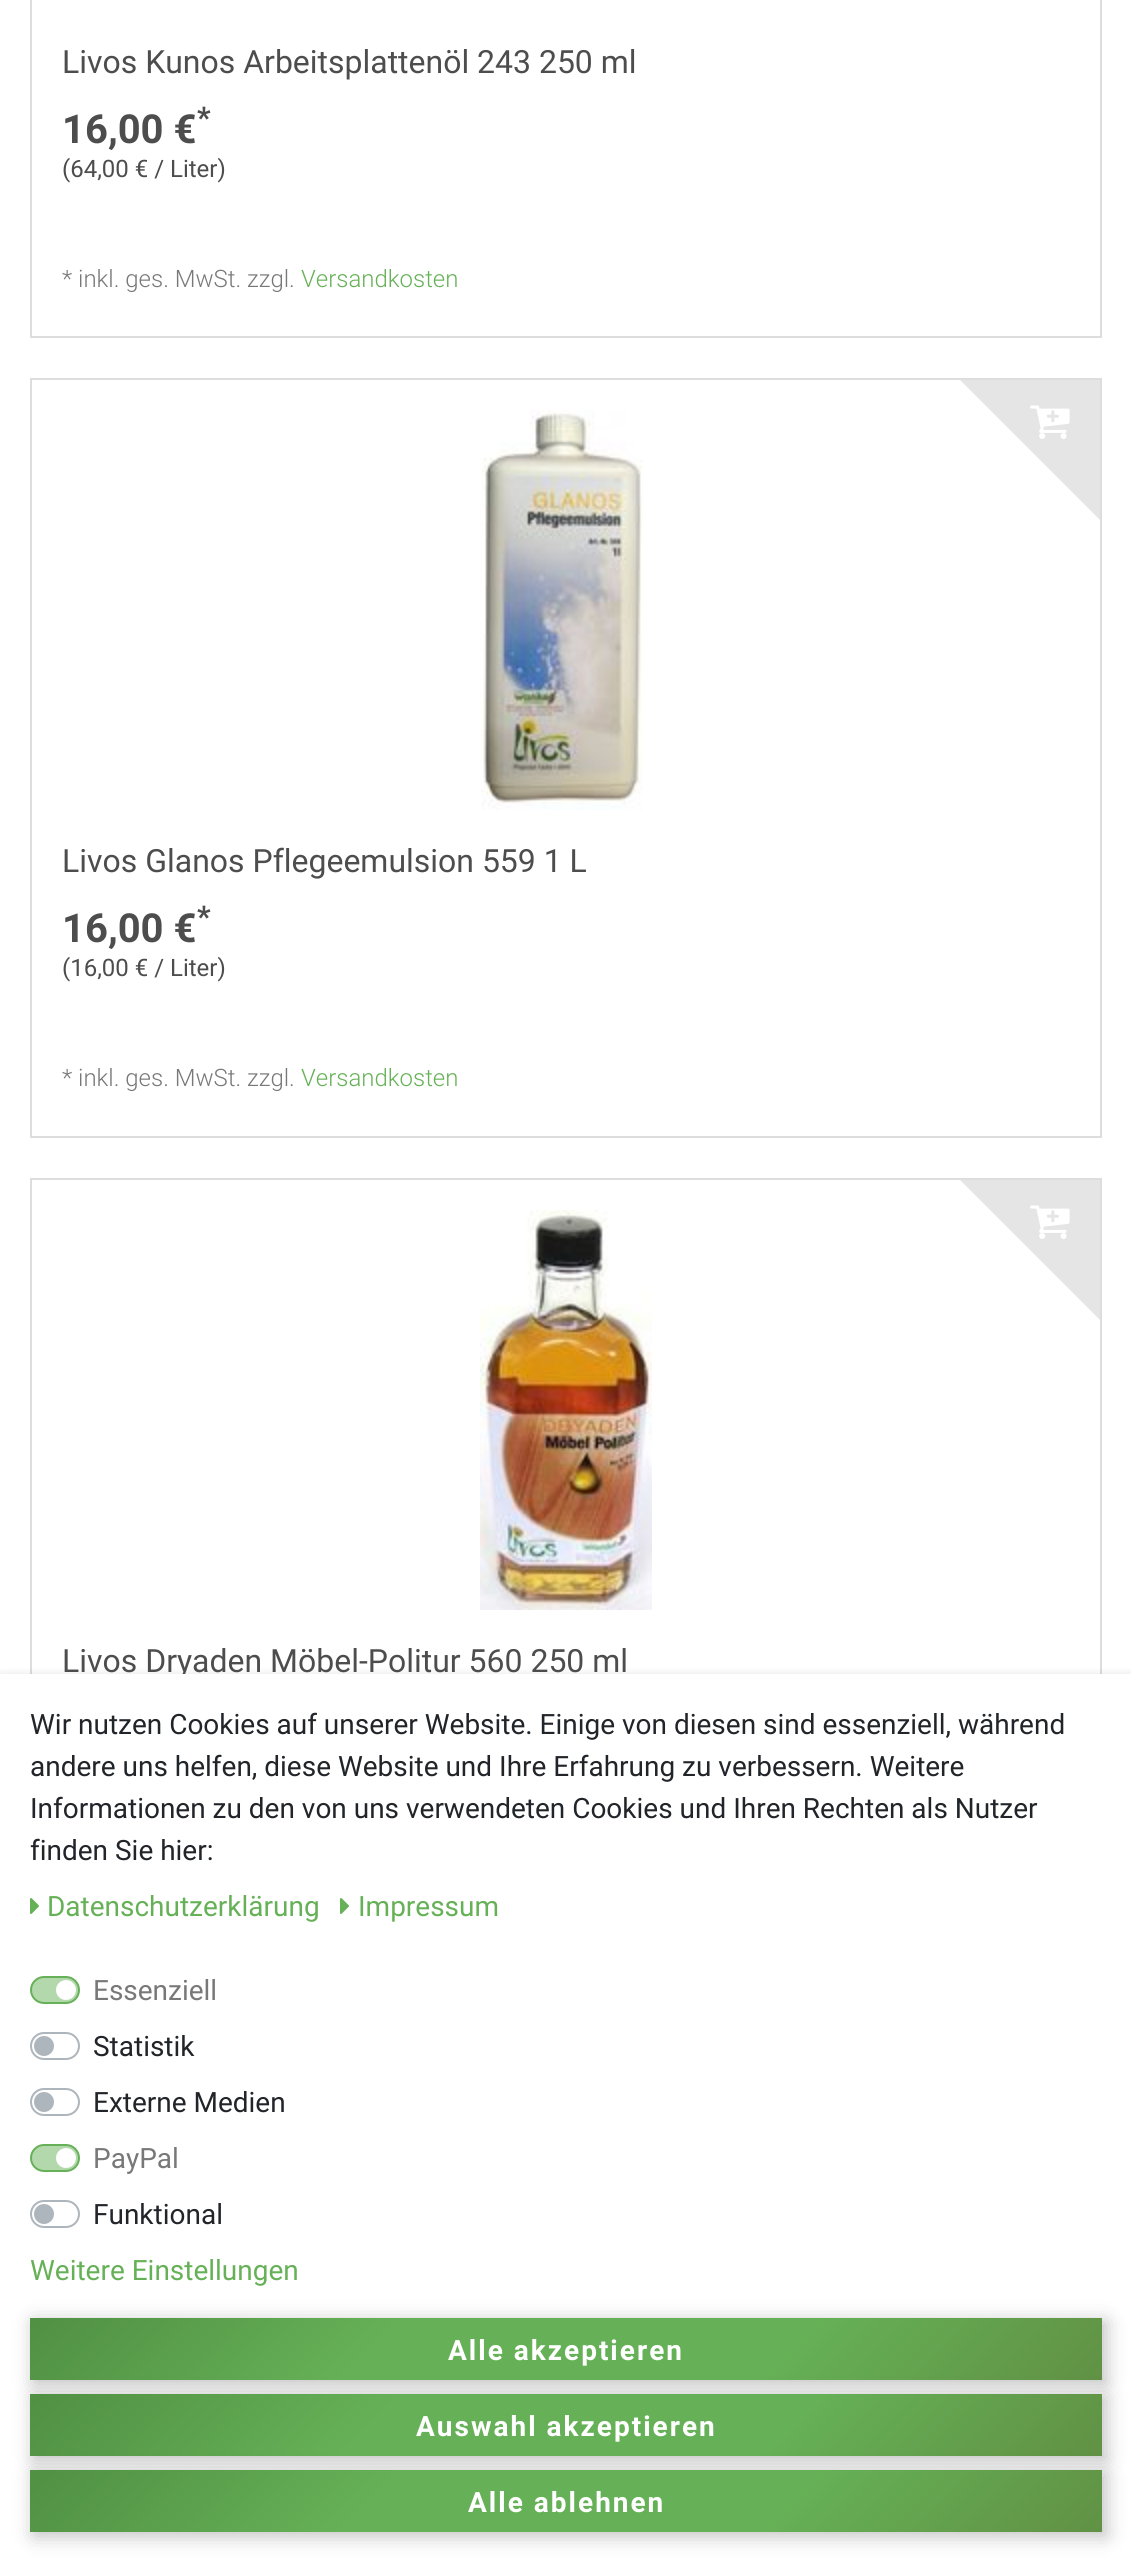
import math
import cairo


def use_color(cr, r, g, b):
  cr.set_source_rgb(r / 255, g / 255, b / 255)

def text(cr, x, y, s, family, size, color, bold=False, italic=False):
  cr.select_font_face(family, cairo.FONT_SLANT_ITALIC if italic else cairo.FONT_SLANT_NORMAL, cairo.FONT_WEIGHT_BOLD if bold else cairo.FONT_WEIGHT_NORMAL)
  cr.set_font_size(size)
  use_color(cr, *color)
  cr.move_to(x, y)
  cr.show_text(s)

def spaced_text(cr, x, y, s, letter, word):
  cr.move_to(x, y)
  for ch in s:
    cr.show_text(ch)
    cr.rel_move_to(letter + word * (ch == ' '), 0)

def box(cr, x, y, w, h, *color):
  use_color(cr, *color)
  cr.rectangle(x, y, w, h)
  cr.fill()

def round_rect(cr, x, y, w, h, r):
  cr.new_sub_path()
  for i, (u, v) in enumerate([(x + w - r, y + h - r), (x + r, y + h - r), (x + r, y + r), (x + w - r, y + r)]):
    cr.arc(u, v, r, i * math.pi / 2, (i + 1) * math.pi / 2)
  cr.close_path()

def shadow(cr, x, y, w, h, r, blur, alpha):
  cr.push_group_with_content(cairo.CONTENT_ALPHA)
  cr.set_operator(cairo.OPERATOR_SOURCE)
  for i in range(15, -16, -2):
    e = blur * i / 6
    if min(w, h) + 2 * e > 0:
      cr.set_source_rgba(0, 0, 0, alpha * math.erfc((i - 1) / 8.5) / 2)
      round_rect(cr, x - e, y - e, w + 2 * e, h + 2 * e, max(0, min(r + e + blur * .6, min(w, h) / 2 + e)))
      cr.fill()
  cr.mask(cr.pop_group())

def picture(cr, path, x, y, w, h):
  cr.save()
  cr.set_source_surface(cairo.ImageSurface.create_from_png(path), x, y)
  cr.rectangle(x, y, w, h)
  cr.fill()
  cr.restore()

def draw(cr):
  use_color(cr, 255, 255, 255)
  cr.paint()
  cr.rectangle(31, -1, 1070, 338)
  use_color(cr, 221, 221, 221)
  cr.stroke()
  cr.rectangle(31, 379, 1070, 758)
  cr.stroke()
  picture(cr, "img_01.png", 480, 410, 163, 400)
  cr.save()
  cr.rectangle(32, 380, 1068, 756)
  cr.clip()
  use_color(cr, 229, 229, 229)
  cr.new_path()
  cr.move_to(1100, 376)
  cr.line_to(1100, 520)
  cr.line_to(960, 380)
  cr.close_path()
  cr.fill()
  cr.restore()
  picture(cr, "img_02.png", 1030, 405, 40, 34)
  cr.rectangle(31, 1179, 1070, 758)
  cr.stroke()
  picture(cr, "img_03.png", 480, 1210, 172, 400)
  cr.save()
  cr.rectangle(32, 1180, 1068, 756)
  cr.clip()
  use_color(cr, 229, 229, 229)
  cr.new_path()
  cr.move_to(1100, 1176)
  cr.line_to(1100, 1320)
  cr.line_to(960, 1180)
  cr.close_path()
  cr.fill()
  cr.restore()
  picture(cr, "img_02.png", 1030, 1205, 40, 34)
  use_color(cr, 0, 0, 0)
  shadow(cr, 0, 1676, 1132, 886, 0, 5, 0.15)
  text(cr, 62, 73, "Livos Kunos Arbeitsplattenöl 243 250 ml", "Roboto", 32, (77, 77, 77))
  text(cr, 62, 143, "16,00 €", "Roboto", 40, (77, 77, 77), bold=True)
  text(cr, 197, 128, "*", "Roboto", 30, (77, 77, 77), bold=True)
  text(cr, 62, 177, "(64,00 € / Liter)", "Roboto", 24, (77, 77, 77))
  text(cr, 62, 287, "* inkl. ges. MwSt. zzgl.", "Roboto Light", 24, (120, 120, 120))
  text(cr, 301, 287, "Versandkosten", "Roboto Light", 24, (102, 177, 87))
  text(cr, 62, 872, "Livos Glanos Pflegeemulsion 559 1 L", "Roboto", 32, (77, 77, 77))
  text(cr, 62, 942, "16,00 €", "Roboto", 40, (77, 77, 77), bold=True)
  text(cr, 197, 927, "*", "Roboto", 30, (77, 77, 77), bold=True)
  text(cr, 62, 976, "(16,00 € / Liter)", "Roboto", 24, (77, 77, 77))
  text(cr, 62, 1086, "* inkl. ges. MwSt. zzgl.", "Roboto Light", 24, (120, 120, 120))
  text(cr, 301, 1086, "Versandkosten", "Roboto Light", 24, (102, 177, 87))
  text(cr, 62, 1672, "Livos Dryaden Möbel-Politur 560 250 ml", "Roboto", 32, (77, 77, 77))
  box(cr, 0, 1674, 1131, 886, 255, 255, 255)
  text(cr, 30, 1734, "Wir nutzen Cookies auf unserer Website. Einige von diesen sind essenziell, während", "Roboto", 28, (33, 37, 41))
  text(cr, 30, 1776, "andere uns helfen, diese Website und Ihre Erfahrung zu verbessern. Weitere", "Roboto", 28, (33, 37, 41))
  text(cr, 30, 1818, "Informationen zu den von uns verwendeten Cookies und Ihren Rechten als Nutzer", "Roboto", 28, (33, 37, 41))
  text(cr, 30, 1860, "finden Sie hier:", "Roboto", 28, (33, 37, 41))
  picture(cr, "img_04.png", 30, 1898, 9, 16)
  text(cr, 47, 1916, "Datenschutzerklärung", "Roboto", 28, (102, 177, 87))
  picture(cr, "img_04.png", 340, 1898, 9, 16)
  text(cr, 358, 1916, "Impressum", "Roboto", 28, (102, 177, 87))
  use_color(cr, 179, 216, 171)
  round_rect(cr, 31, 1977, 48, 26, 13)
  cr.fill_preserve()
  use_color(cr, 102, 177, 87)
  cr.stroke()
  text(cr, 93, 2000, "Essenziell", "Roboto", 28, (120, 120, 120))
  use_color(cr, 255, 255, 255)
  cr.new_path()
  cr.arc(66, 1990, 10, 0, 2 * math.pi)
  cr.fill()
  round_rect(cr, 31, 2033, 48, 26, 13)
  use_color(cr, 173, 181, 189)
  cr.stroke()
  text(cr, 93, 2056, "Statistik", "Roboto", 28, (33, 37, 41))
  use_color(cr, 173, 181, 189)
  cr.new_path()
  cr.arc(44, 2046, 10, 0, 2 * math.pi)
  cr.fill()
  round_rect(cr, 31, 2089, 48, 26, 13)
  cr.stroke()
  text(cr, 93, 2112, "Externe Medien", "Roboto", 28, (33, 37, 41))
  use_color(cr, 173, 181, 189)
  cr.new_path()
  cr.arc(44, 2102, 10, 0, 2 * math.pi)
  cr.fill()
  use_color(cr, 179, 216, 171)
  round_rect(cr, 31, 2145, 48, 26, 13)
  cr.fill_preserve()
  use_color(cr, 102, 177, 87)
  cr.stroke()
  text(cr, 93, 2168, "PayPal", "Roboto", 28, (120, 120, 120))
  use_color(cr, 255, 255, 255)
  cr.new_path()
  cr.arc(66, 2158, 10, 0, 2 * math.pi)
  cr.fill()
  round_rect(cr, 31, 2201, 48, 26, 13)
  use_color(cr, 173, 181, 189)
  cr.stroke()
  text(cr, 93, 2224, "Funktional", "Roboto", 28, (33, 37, 41))
  use_color(cr, 173, 181, 189)
  cr.new_path()
  cr.arc(44, 2214, 10, 0, 2 * math.pi)
  cr.fill()
  text(cr, 30, 2280, "Weitere Einstellungen", "Roboto", 28, (102, 177, 87))
  use_color(cr, 0, 0, 0)
  shadow(cr, 34, 2322, 1072, 62, 0, 10, 0.25)
  gradient = cairo.LinearGradient(282, 2066, 850, 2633)
  gradient.add_color_stop_rgba(0.01, 0.318, 0.569, 0.267, 1)
  gradient.add_color_stop_rgba(0.33, 0.4, 0.694, 0.341, 1)
  gradient.add_color_stop_rgba(0.69, 0.4, 0.694, 0.341, 1)
  gradient.add_color_stop_rgba(1, 0.38, 0.569, 0.267, 1)
  cr.set_source(gradient)
  cr.rectangle(30, 2318, 1072, 62)
  cr.fill()
  cr.select_font_face("Roboto", cairo.FONT_SLANT_NORMAL, cairo.FONT_WEIGHT_BOLD)
  use_color(cr, 255, 255, 255)
  spaced_text(cr, 448, 2360, "Alle akzeptieren", 2, 0)
  use_color(cr, 0, 0, 0)
  shadow(cr, 34, 2398, 1072, 62, 0, 10, 0.25)
  gradient = cairo.LinearGradient(282, 2142, 850, 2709)
  gradient.add_color_stop_rgba(0.01, 0.318, 0.569, 0.267, 1)
  gradient.add_color_stop_rgba(0.33, 0.4, 0.694, 0.341, 1)
  gradient.add_color_stop_rgba(0.69, 0.4, 0.694, 0.341, 1)
  gradient.add_color_stop_rgba(1, 0.38, 0.569, 0.267, 1)
  cr.set_source(gradient)
  cr.rectangle(30, 2394, 1072, 62)
  cr.fill()
  use_color(cr, 255, 255, 255)
  spaced_text(cr, 416, 2436, "Auswahl akzeptieren", 2, 0)
  use_color(cr, 0, 0, 0)
  shadow(cr, 34, 2474, 1072, 62, 0, 10, 0.25)
  gradient = cairo.LinearGradient(282, 2218, 850, 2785)
  gradient.add_color_stop_rgba(0.01, 0.318, 0.569, 0.267, 1)
  gradient.add_color_stop_rgba(0.33, 0.4, 0.694, 0.341, 1)
  gradient.add_color_stop_rgba(0.69, 0.4, 0.694, 0.341, 1)
  gradient.add_color_stop_rgba(1, 0.38, 0.569, 0.267, 1)
  cr.set_source(gradient)
  cr.rectangle(30, 2470, 1072, 62)
  cr.fill()
  use_color(cr, 255, 255, 255)
  spaced_text(cr, 468, 2512, "Alle ablehnen", 2, 0)


surface = cairo.ImageSurface(cairo.FORMAT_RGB24, 1131, 2560)
cr = cairo.Context(surface)
options = cairo.FontOptions()
options.set_hint_metrics(cairo.HINT_METRICS_OFF)
options.set_hint_style(cairo.HINT_STYLE_NONE)
cr.set_font_options(options)
cr.set_miter_limit(4)
draw(cr)
surface.write_to_png("out.png")
